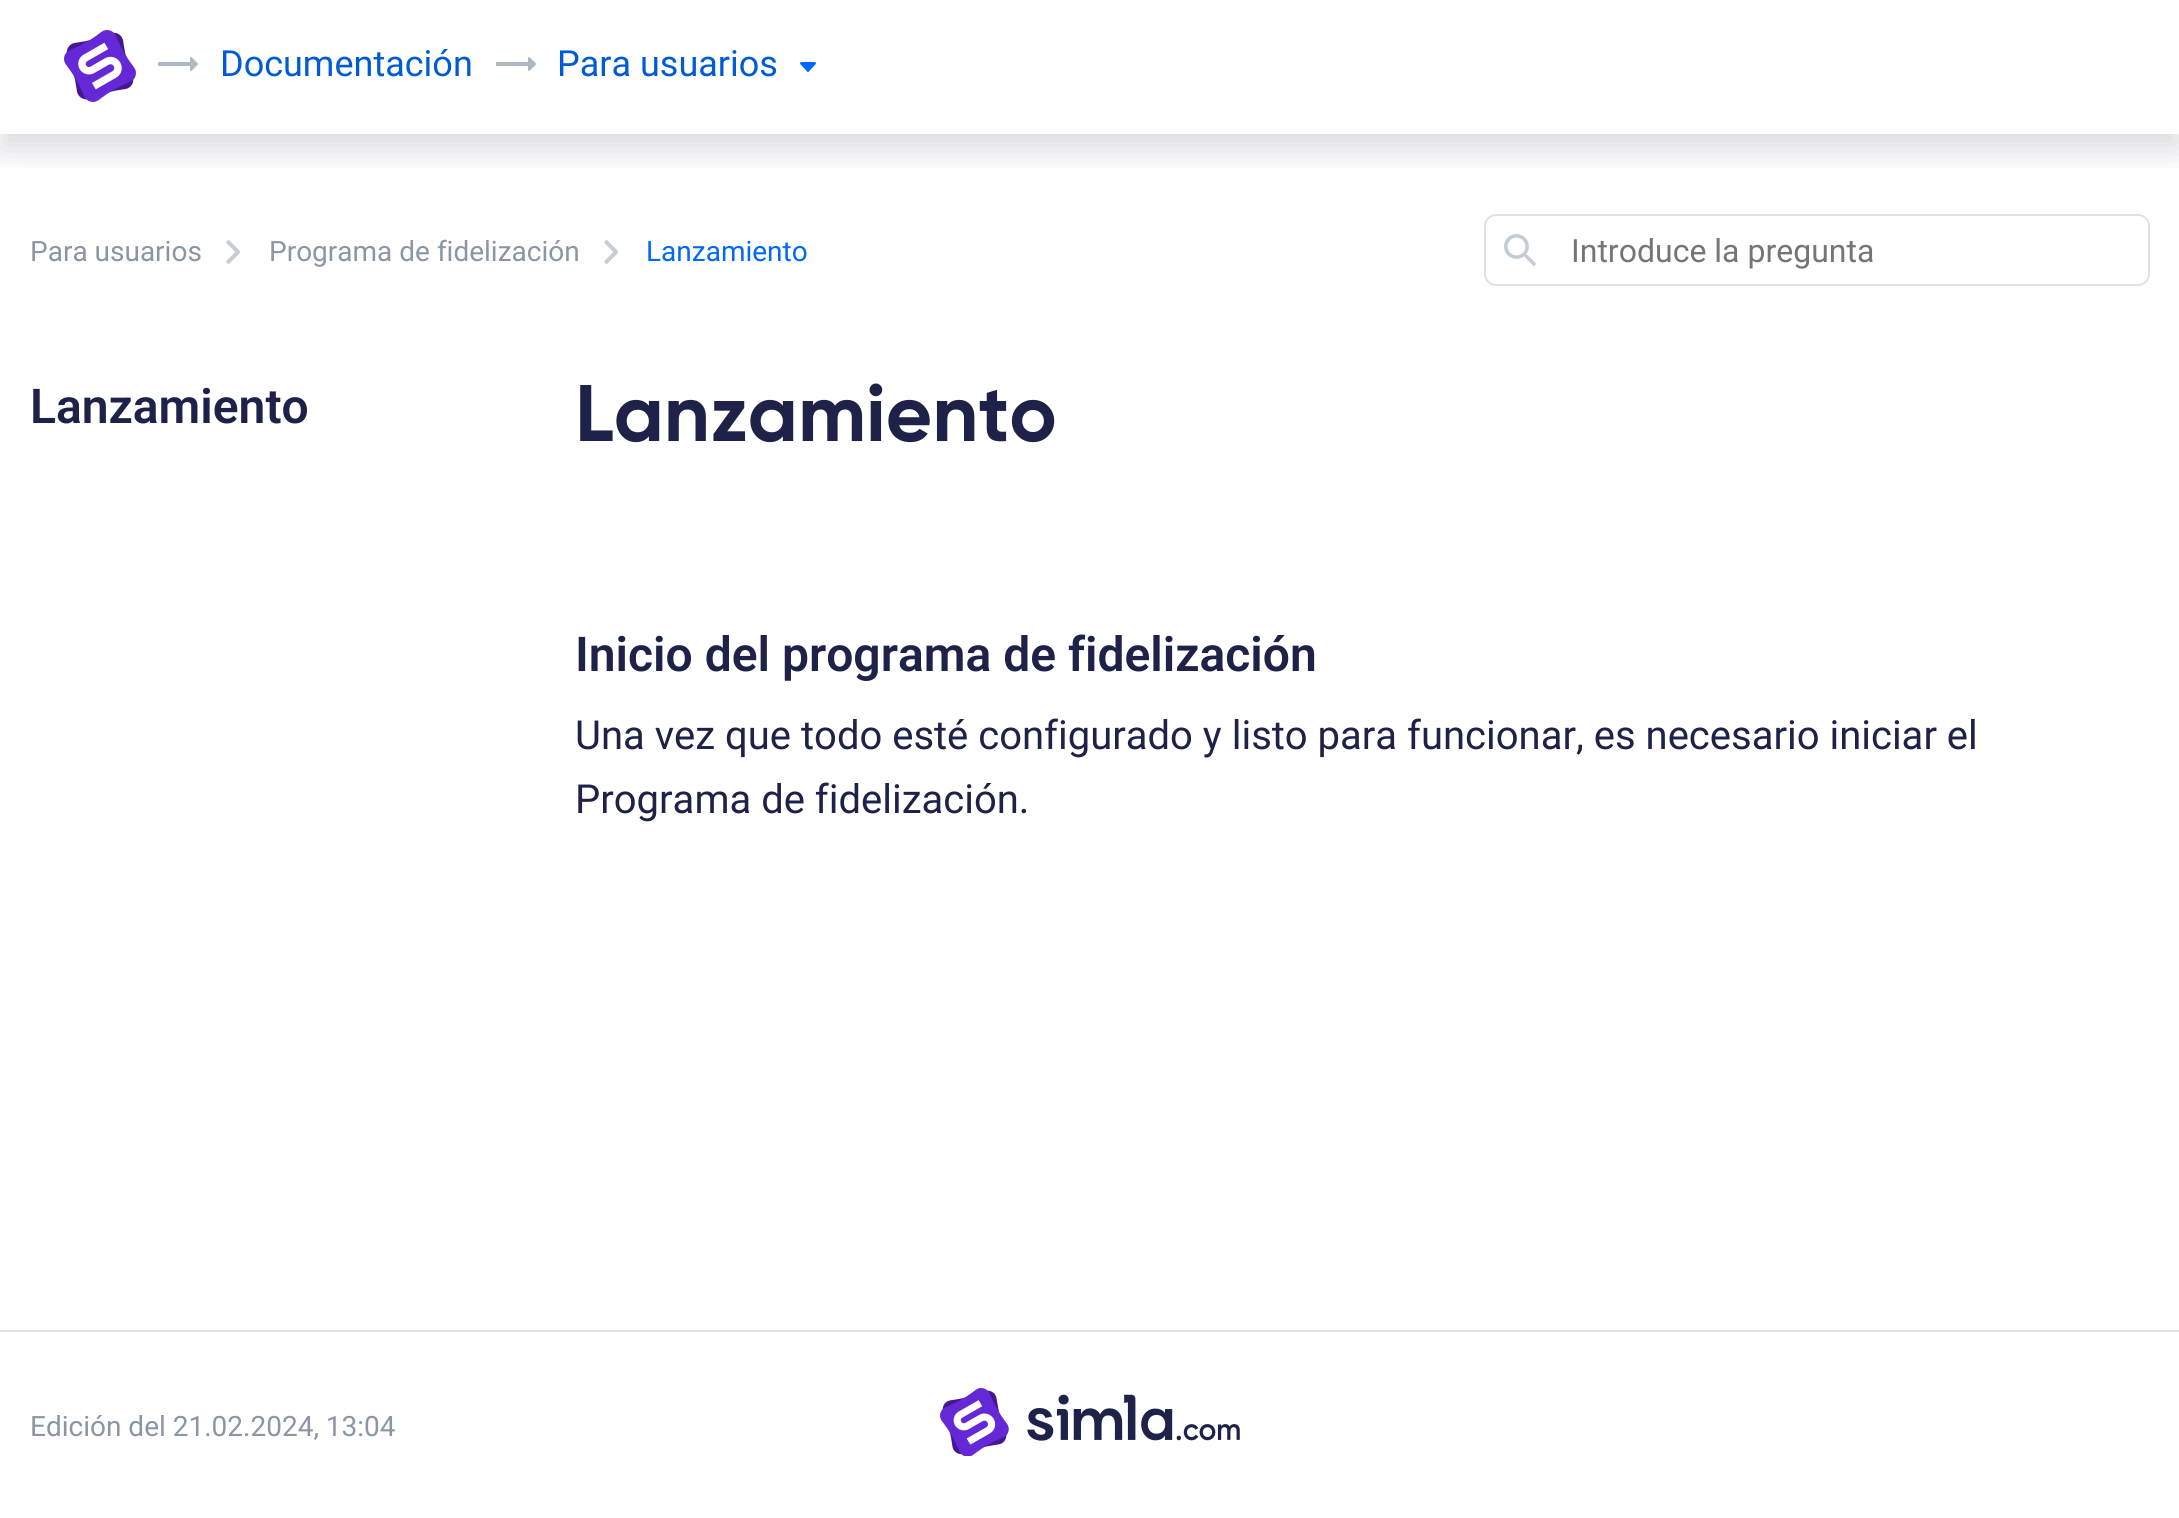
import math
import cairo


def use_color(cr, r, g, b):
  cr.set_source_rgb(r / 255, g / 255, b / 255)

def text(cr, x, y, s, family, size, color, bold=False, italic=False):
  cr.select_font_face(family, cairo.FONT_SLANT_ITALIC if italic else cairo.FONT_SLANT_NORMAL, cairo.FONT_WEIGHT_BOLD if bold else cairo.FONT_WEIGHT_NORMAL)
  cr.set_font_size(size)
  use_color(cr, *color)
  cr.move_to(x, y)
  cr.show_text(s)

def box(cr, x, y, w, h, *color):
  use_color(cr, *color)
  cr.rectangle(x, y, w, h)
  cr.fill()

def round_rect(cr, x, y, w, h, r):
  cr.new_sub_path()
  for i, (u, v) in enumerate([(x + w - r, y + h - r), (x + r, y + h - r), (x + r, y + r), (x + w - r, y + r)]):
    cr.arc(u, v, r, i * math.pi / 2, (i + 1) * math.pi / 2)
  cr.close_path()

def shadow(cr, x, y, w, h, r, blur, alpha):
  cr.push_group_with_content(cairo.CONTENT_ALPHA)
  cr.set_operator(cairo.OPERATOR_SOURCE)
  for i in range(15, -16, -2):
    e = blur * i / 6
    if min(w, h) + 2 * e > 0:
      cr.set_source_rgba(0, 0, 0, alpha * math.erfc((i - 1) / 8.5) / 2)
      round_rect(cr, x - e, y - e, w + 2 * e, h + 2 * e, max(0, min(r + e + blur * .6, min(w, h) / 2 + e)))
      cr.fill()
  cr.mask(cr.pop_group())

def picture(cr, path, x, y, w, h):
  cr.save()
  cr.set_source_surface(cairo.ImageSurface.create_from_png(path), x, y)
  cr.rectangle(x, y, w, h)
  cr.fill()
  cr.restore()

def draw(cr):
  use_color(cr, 255, 255, 255)
  cr.paint()
  cr.save()
  cr.rectangle(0, 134, 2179, 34)
  cr.clip()
  use_color(cr, 30, 34, 72)
  shadow(cr, 0, 16, 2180, 134, 0, 16, 0.16)
  cr.restore()
  picture(cr, "img_01.png", 64, 30, 72, 72)
  picture(cr, "img_02.png", 158, 57, 40, 14)
  picture(cr, "img_02.png", 496, 57, 40, 14)
  picture(cr, "img_03.png", 800, 62, 16, 10)
  shadow(cr, -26, 182, 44, 128, 0, 15, 1)
  picture(cr, "img_04.png", 226, 240, 14, 24)
  picture(cr, "img_04.png", 604, 240, 14, 24)
  round_rect(cr, 1485, 215, 664, 70, 11)
  use_color(cr, 223, 227, 232)
  cr.stroke()
  picture(cr, "img_05.png", 1504, 234, 32, 32)
  box(cr, 0, 1330, 2179, 2, 222, 226, 230)
  picture(cr, "img_06.png", 940, 1388, 300, 68)
  text(cr, 220, 76, "Documentación", "Roboto", 36, (0, 91, 213))
  text(cr, 557, 76, "Para usuarios", "Roboto", 36, (0, 91, 213))
  text(cr, 30, 261, "Para usuarios", "Roboto", 28, (138, 150, 166))
  text(cr, 269, 261, "Programa de fidelización", "Roboto", 28, (138, 150, 166))
  text(cr, 646, 261, "Lanzamiento", "Roboto", 28, (0, 104, 255))
  text(cr, 1571, 262, "Introduce la pregunta", "Roboto", 32, (117, 117, 117))
  text(cr, 30, 423, "Lanzamiento", "Roboto SemiBold", 48, (30, 34, 72))
  text(cr, 575, 441, "Lanzamiento", "Gilroy", 80, (30, 34, 72), bold=True)
  text(cr, 575, 671, "Inicio del programa de fidelización", "Roboto SemiBold", 48, (30, 34, 72))
  text(cr, 575, 749, "Una vez que todo esté configurado y listo para funcionar, es necesario iniciar el", "Roboto", 40, (30, 34, 72))
  text(cr, 575, 813, "Programa de fidelización.", "Roboto", 40, (30, 34, 72))
  text(cr, 30, 1436, "Edición del 21.02.2024, 13:04", "Roboto", 28, (138, 150, 166))


surface = cairo.ImageSurface(cairo.FORMAT_RGB24, 2179, 1518)
cr = cairo.Context(surface)
options = cairo.FontOptions()
options.set_hint_metrics(cairo.HINT_METRICS_OFF)
options.set_hint_style(cairo.HINT_STYLE_NONE)
cr.set_font_options(options)
cr.set_miter_limit(4)
draw(cr)
surface.write_to_png("out.png")
